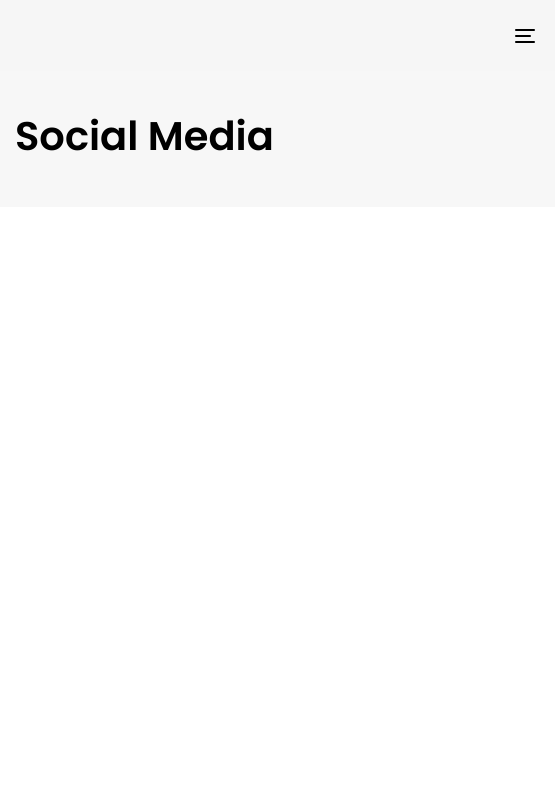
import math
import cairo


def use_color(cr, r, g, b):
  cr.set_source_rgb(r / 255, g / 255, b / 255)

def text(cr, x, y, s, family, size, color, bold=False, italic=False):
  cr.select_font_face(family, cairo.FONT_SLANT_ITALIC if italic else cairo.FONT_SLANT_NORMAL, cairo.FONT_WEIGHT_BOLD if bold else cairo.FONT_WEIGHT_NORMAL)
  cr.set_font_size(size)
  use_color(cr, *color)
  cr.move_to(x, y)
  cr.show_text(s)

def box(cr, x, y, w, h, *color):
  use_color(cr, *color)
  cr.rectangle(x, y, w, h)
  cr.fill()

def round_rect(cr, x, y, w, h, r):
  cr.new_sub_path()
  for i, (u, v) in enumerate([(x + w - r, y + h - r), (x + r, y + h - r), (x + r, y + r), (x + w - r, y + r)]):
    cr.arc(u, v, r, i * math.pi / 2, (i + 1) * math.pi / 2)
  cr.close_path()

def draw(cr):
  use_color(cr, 255, 255, 255)
  cr.paint()
  box(cr, 0, 0, 555, 71, 246, 246, 246)
  use_color(cr, 0, 0, 0)
  round_rect(cr, 515, 29, 20, 2, 1)
  cr.fill()
  round_rect(cr, 515, 35, 16, 2, 1)
  cr.fill()
  round_rect(cr, 515, 41, 20, 2, 1)
  cr.fill()
  box(cr, 0, 71, 555, 136, 247, 247, 247)
  text(cr, 15, 150, "Social Media", "Poppins SemiBold", 40, (0, 0, 0))


surface = cairo.ImageSurface(cairo.FORMAT_RGB24, 555, 810)
cr = cairo.Context(surface)
options = cairo.FontOptions()
options.set_hint_metrics(cairo.HINT_METRICS_OFF)
options.set_hint_style(cairo.HINT_STYLE_NONE)
cr.set_font_options(options)
cr.set_miter_limit(4)
draw(cr)
surface.write_to_png("out.png")
